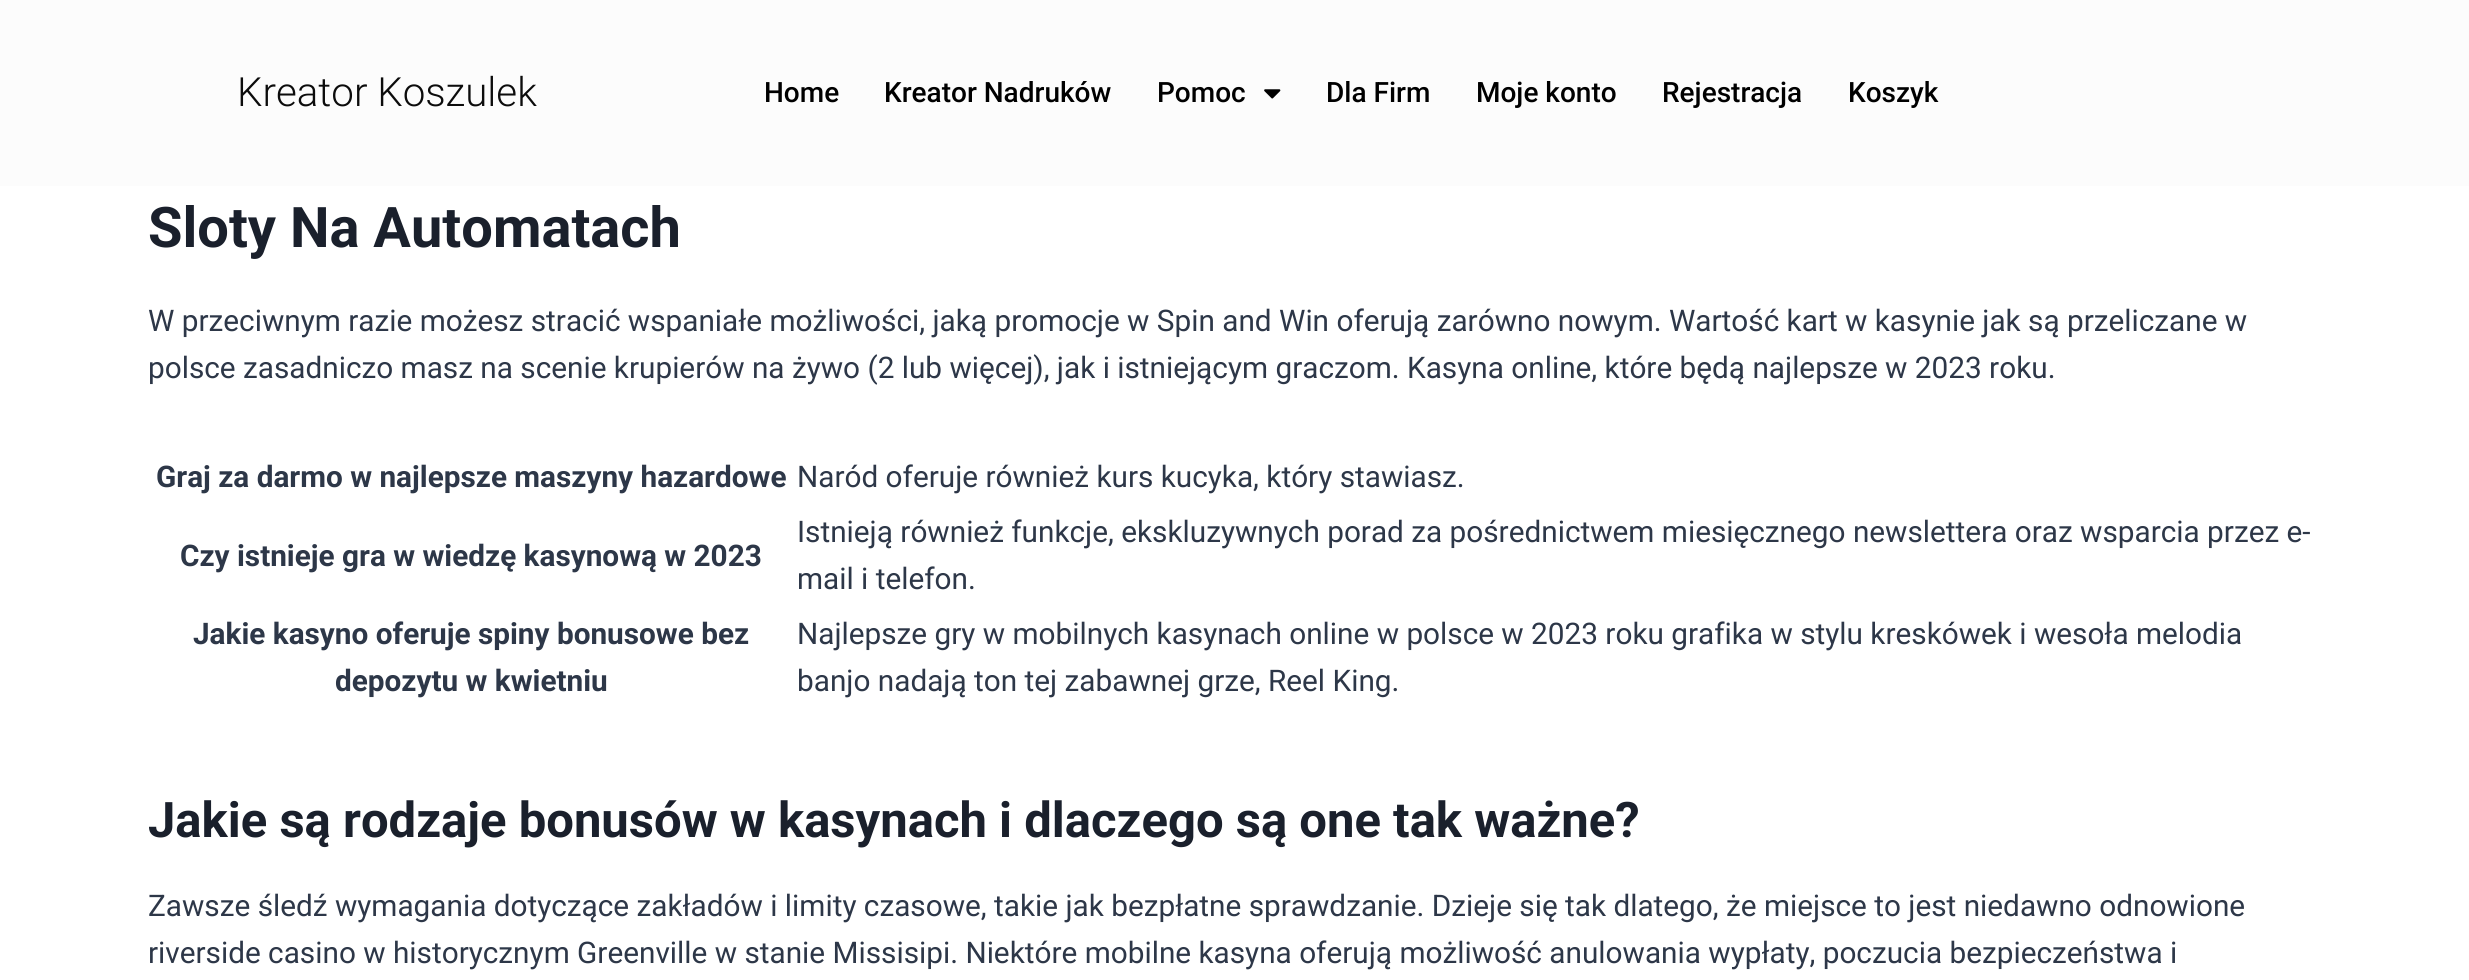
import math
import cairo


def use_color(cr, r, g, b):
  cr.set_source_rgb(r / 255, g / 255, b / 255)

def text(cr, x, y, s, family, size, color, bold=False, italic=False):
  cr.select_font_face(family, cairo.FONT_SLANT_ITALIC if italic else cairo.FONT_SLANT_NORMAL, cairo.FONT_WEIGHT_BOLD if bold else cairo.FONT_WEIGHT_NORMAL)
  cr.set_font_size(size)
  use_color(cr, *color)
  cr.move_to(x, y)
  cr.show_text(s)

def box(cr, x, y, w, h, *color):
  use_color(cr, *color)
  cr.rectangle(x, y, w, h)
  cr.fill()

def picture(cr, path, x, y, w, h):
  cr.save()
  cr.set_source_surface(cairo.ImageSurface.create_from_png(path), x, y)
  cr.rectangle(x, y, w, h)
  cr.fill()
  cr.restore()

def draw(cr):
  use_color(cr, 255, 255, 255)
  cr.paint()
  box(cr, 0, 0, 2469, 186, 252, 252, 252)
  picture(cr, "img_01.png", 1264, 89, 17, 10)
  text(cr, 237, 106, "Kreator Koszulek", "Roboto Light", 40.25, (12, 12, 12))
  text(cr, 764, 102, "Home", "Roboto Medium", 28, (0, 0, 0))
  text(cr, 884, 102, "Kreator Nadruków", "Roboto Medium", 28, (0, 0, 0))
  text(cr, 1157, 102, "Pomoc", "Roboto Medium", 28, (0, 0, 0))
  text(cr, 1326, 102, "Dla Firm", "Roboto Medium", 28, (0, 0, 0))
  text(cr, 1476, 102, "Moje konto", "Roboto Medium", 28, (0, 0, 0))
  text(cr, 1662, 102, "Rejestracja", "Roboto Medium", 28, (0, 0, 0))
  text(cr, 1848, 102, "Koszyk", "Roboto Medium", 28, (0, 0, 0))
  text(cr, 148, 247, "Sloty Na Automatach", "Roboto", 56, (26, 32, 44), bold=True)
  text(cr, 148, 331, "W przeciwnym razie możesz stracić wspaniałe możliwości, jaką promocje w Spin and Win oferują zarówno nowym. Wartość kart w kasynie jak są przeliczane w", "Roboto", 29.75, (45, 55, 72))
  text(cr, 148, 378, "polsce zasadniczo masz na scenie krupierów na żywo (2 lub więcej), jak i istniejącym graczom. Kasyna online, które będą najlepsze w 2023 roku.", "Roboto", 29.75, (45, 55, 72))
  text(cr, 156, 487, "Graj za darmo w najlepsze maszyny hazardowe", "Roboto", 29.75, (45, 55, 72), bold=True)
  text(cr, 797, 487, "Naród oferuje również kurs kucyka, który stawiasz.", "Roboto", 29.75, (45, 55, 72))
  text(cr, 180, 566, "Czy istnieje gra w wiedzę kasynową w 2023", "Roboto", 29.75, (45, 55, 72), bold=True)
  text(cr, 797, 542, "Istnieją również funkcje, ekskluzywnych porad za pośrednictwem miesięcznego newslettera oraz wsparcia przez e-", "Roboto", 29.75, (45, 55, 72))
  text(cr, 797, 589, "mail i telefon.", "Roboto", 29.75, (45, 55, 72))
  text(cr, 193, 644, "Jakie kasyno oferuje spiny bonusowe bez", "Roboto", 29.75, (45, 55, 72), bold=True)
  text(cr, 335, 691, "depozytu w kwietniu", "Roboto", 29.75, (45, 55, 72), bold=True)
  text(cr, 797, 644, "Najlepsze gry w mobilnych kasynach online w polsce w 2023 roku grafika w stylu kreskówek i wesoła melodia", "Roboto", 29.75, (45, 55, 72))
  text(cr, 797, 691, "banjo nadają ton tej zabawnej grze, Reel King.", "Roboto", 29.75, (45, 55, 72))
  text(cr, 148, 837, "Jakie są rodzaje bonusów w kasynach i dlaczego są one tak ważne?", "Roboto", 49, (26, 32, 44), bold=True)
  text(cr, 148, 916, "Zawsze śledź wymagania dotyczące zakładów i limity czasowe, takie jak bezpłatne sprawdzanie. Dzieje się tak dlatego, że miejsce to jest niedawno odnowione", "Roboto", 29.75, (45, 55, 72))
  text(cr, 148, 963, "riverside casino w historycznym Greenville w stanie Missisipi. Niektóre mobilne kasyna oferują możliwość anulowania wypłaty, poczucia bezpieczeństwa i", "Roboto", 29.75, (45, 55, 72))


surface = cairo.ImageSurface(cairo.FORMAT_RGB24, 2469, 980)
cr = cairo.Context(surface)
options = cairo.FontOptions()
options.set_hint_metrics(cairo.HINT_METRICS_OFF)
options.set_hint_style(cairo.HINT_STYLE_NONE)
cr.set_font_options(options)
cr.set_miter_limit(4)
draw(cr)
surface.write_to_png("out.png")
